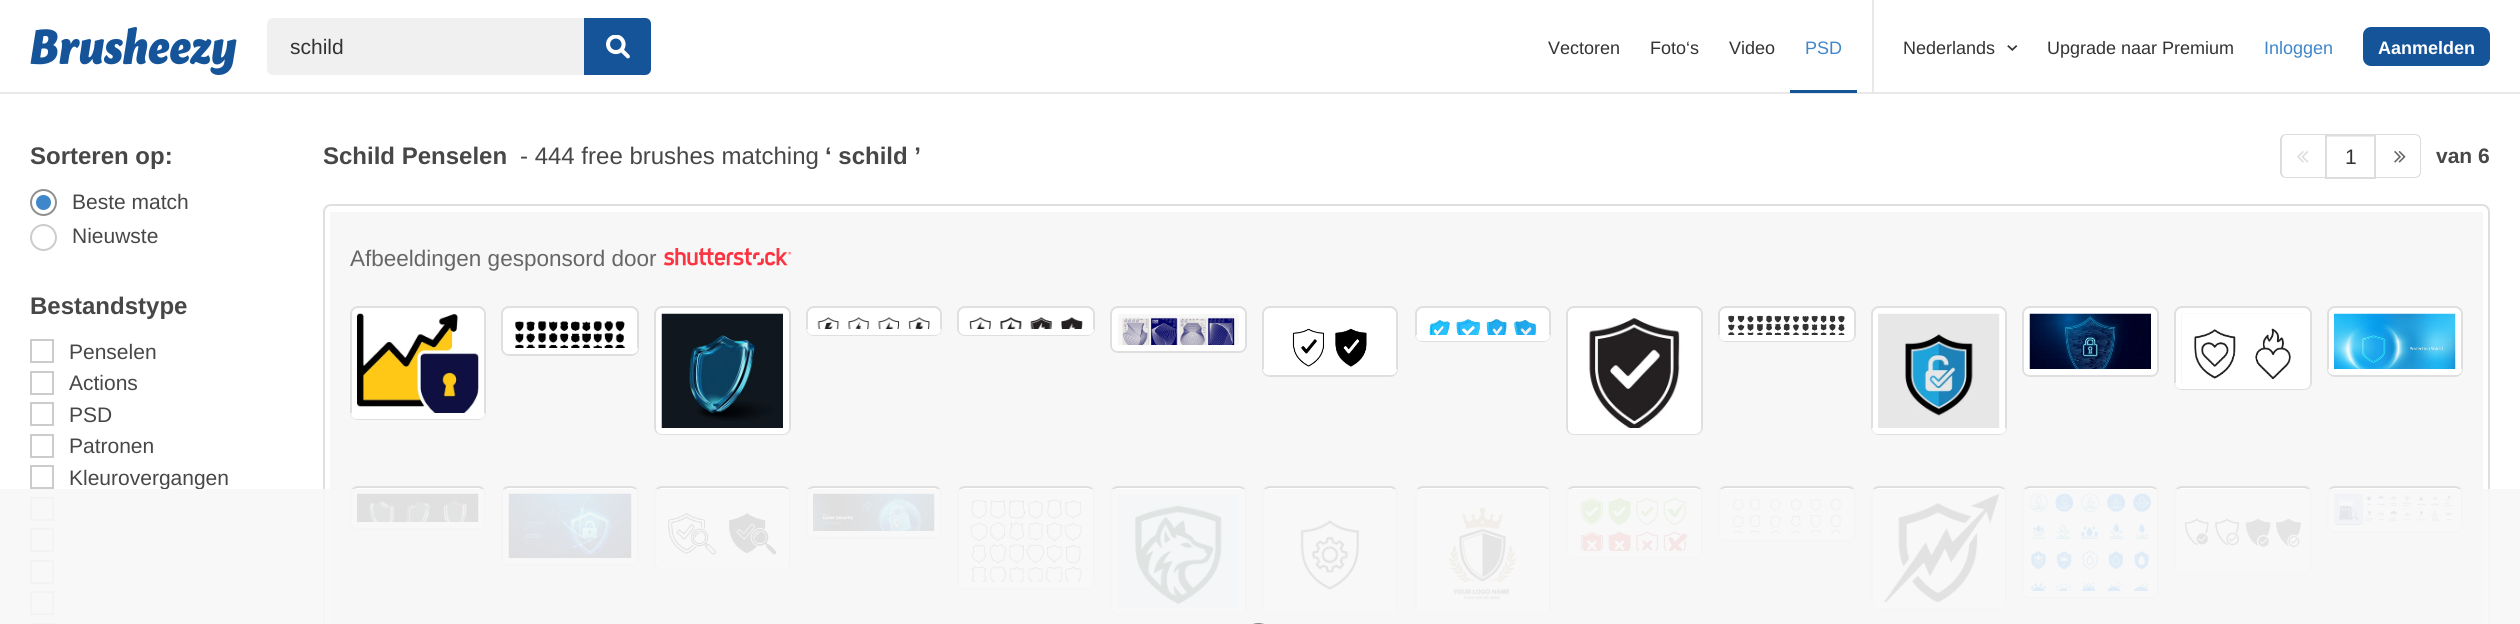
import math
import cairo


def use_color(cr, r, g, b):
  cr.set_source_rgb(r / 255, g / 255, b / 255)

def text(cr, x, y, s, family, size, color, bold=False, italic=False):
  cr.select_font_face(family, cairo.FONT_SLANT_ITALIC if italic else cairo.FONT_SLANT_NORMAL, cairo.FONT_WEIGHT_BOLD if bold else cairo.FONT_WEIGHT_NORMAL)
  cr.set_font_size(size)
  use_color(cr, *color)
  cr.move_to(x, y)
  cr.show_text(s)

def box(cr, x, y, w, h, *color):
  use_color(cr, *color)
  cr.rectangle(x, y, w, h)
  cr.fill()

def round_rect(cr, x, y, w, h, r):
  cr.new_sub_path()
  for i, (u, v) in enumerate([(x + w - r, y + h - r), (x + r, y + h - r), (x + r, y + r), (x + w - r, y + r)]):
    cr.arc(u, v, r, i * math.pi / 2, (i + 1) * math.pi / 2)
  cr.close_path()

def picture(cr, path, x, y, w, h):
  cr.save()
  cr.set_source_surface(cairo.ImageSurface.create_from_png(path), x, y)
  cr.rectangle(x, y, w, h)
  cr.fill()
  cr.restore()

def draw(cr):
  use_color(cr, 255, 255, 255)
  cr.paint()
  box(cr, 0, 92, 2520, 2, 232, 232, 232)
  picture(cr, "img_01.png", 30, 27, 207, 48)
  use_color(cr, 240, 240, 240)
  round_rect(cr, 267, 18, 384, 57, 6)
  cr.fill()
  use_color(cr, 21, 84, 153)
  cr.new_path()
  cr.move_to(584, 18)
  cr.line_to(645, 18)
  cr.curve_to(648.5, 18, 651, 20.5, 651, 24)
  cr.line_to(651, 69)
  cr.curve_to(651, 72.5, 648.5, 75, 645, 75)
  cr.line_to(584, 75)
  cr.close_path()
  cr.fill()
  picture(cr, "img_02.png", 606, 35, 24, 24)
  box(cr, 1790, 90, 67, 3, 21, 84, 153)
  box(cr, 1872, 0, 2, 93, 232, 232, 232)
  picture(cr, "img_03.png", 2007, 45, 11, 6)
  use_color(cr, 21, 84, 153)
  round_rect(cr, 2363, 27, 127, 39, 8)
  cr.fill()
  cr.arc(43.5, 202.5, 12.5, 0, 2 * math.pi)
  use_color(cr, 144, 144, 144)
  cr.stroke()
  use_color(cr, 63, 134, 202)
  cr.arc(43.5, 202.5, 7.5, 0, 2 * math.pi)
  cr.fill()
  cr.arc(43.5, 237.5, 12.5, 0, 2 * math.pi)
  use_color(cr, 204, 204, 204)
  cr.stroke()
  cr.rectangle(31, 340, 22, 22)
  cr.stroke()
  cr.rectangle(31, 372, 22, 22)
  cr.stroke()
  cr.rectangle(31, 403, 22, 22)
  cr.stroke()
  cr.rectangle(31, 435, 22, 22)
  cr.stroke()
  cr.rectangle(31, 466, 22, 22)
  cr.stroke()
  cr.rectangle(31, 498, 22, 22)
  cr.stroke()
  cr.rectangle(31, 529, 22, 22)
  cr.stroke()
  cr.rectangle(31, 561, 22, 22)
  cr.stroke()
  cr.rectangle(31, 592, 22, 22)
  cr.stroke()
  cr.rectangle(31, 624, 22, 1)
  cr.stroke()
  use_color(cr, 221, 221, 221)
  cr.set_fill_rule(cairo.FILL_RULE_EVEN_ODD)
  cr.new_path()
  cr.move_to(2286, 134)
  cr.line_to(2325, 134)
  cr.line_to(2325, 178)
  cr.line_to(2286, 178)
  cr.curve_to(2283, 178, 2280, 176, 2280, 172)
  cr.line_to(2280, 140)
  cr.curve_to(2280, 136, 2283, 134, 2286, 134)
  cr.close_path()
  cr.move_to(2286, 135)
  cr.line_to(2325, 135)
  cr.line_to(2325, 177)
  cr.line_to(2286, 177)
  cr.curve_to(2284, 177, 2282, 175, 2282, 172)
  cr.line_to(2282, 140)
  cr.curve_to(2282, 137, 2284, 135, 2286, 135)
  cr.close_path()
  cr.fill()
  picture(cr, "img_04.png", 2297, 151, 12, 12)
  box(cr, 2327, 136, 48, 1, 236, 236, 236)
  cr.rectangle(2326, 135, 49, 43)
  use_color(cr, 221, 221, 221)
  cr.stroke()
  cr.new_path()
  cr.move_to(2376, 134)
  cr.line_to(2415, 134)
  cr.curve_to(2418, 134, 2421, 136, 2421, 140)
  cr.line_to(2421, 172)
  cr.curve_to(2421, 176, 2418, 178, 2415, 178)
  cr.line_to(2376, 178)
  cr.close_path()
  cr.move_to(2376, 135)
  cr.line_to(2415, 135)
  cr.curve_to(2417, 135, 2420, 137, 2420, 140)
  cr.line_to(2420, 172)
  cr.curve_to(2420, 175, 2417, 177, 2415, 177)
  cr.line_to(2376, 177)
  cr.close_path()
  cr.fill()
  picture(cr, "img_05.png", 2394, 151, 12, 12)
  round_rect(cr, 324, 205, 2165, 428, 7)
  use_color(cr, 223, 223, 223)
  cr.stroke()
  box(cr, 330, 212, 2153, 412, 247, 247, 247)
  picture(cr, "img_06.png", 664, 248, 128, 18)
  use_color(cr, 255, 255, 255)
  round_rect(cr, 351, 307, 134, 112, 7)
  cr.fill_preserve()
  use_color(cr, 223, 223, 223)
  cr.stroke()
  picture(cr, "img_07.png", 357, 313, 122, 100)
  use_color(cr, 255, 255, 255)
  cr.new_path()
  cr.move_to(351, 413)
  cr.line_to(485, 413)
  cr.curve_to(485, 416.5, 482.5, 419, 479, 419)
  cr.line_to(357, 419)
  cr.curve_to(353.5, 419, 351, 416.5, 351, 413)
  cr.close_path()
  cr.fill()
  round_rect(cr, 502, 307, 136, 48, 7)
  cr.fill_preserve()
  use_color(cr, 223, 223, 223)
  cr.stroke()
  picture(cr, "img_08.png", 515, 321, 110, 27)
  use_color(cr, 255, 255, 255)
  cr.new_path()
  cr.move_to(503, 348)
  cr.line_to(638, 348)
  cr.curve_to(638, 351.5, 635.5, 354, 632, 354)
  cr.line_to(509, 354)
  cr.curve_to(505.5, 354, 503, 351.5, 503, 348)
  cr.close_path()
  cr.fill()
  round_rect(cr, 655, 307, 135, 127, 7)
  cr.fill_preserve()
  use_color(cr, 223, 223, 223)
  cr.stroke()
  picture(cr, "img_09.png", 661, 313, 122, 121)
  use_color(cr, 255, 255, 255)
  cr.new_path()
  cr.move_to(656, 428)
  cr.line_to(789, 428)
  cr.curve_to(789, 431.5, 786.5, 434, 783, 434)
  cr.line_to(662, 434)
  cr.curve_to(658.5, 434, 656, 431.5, 656, 428)
  cr.close_path()
  cr.fill()
  round_rect(cr, 807, 307, 134, 28, 7)
  cr.fill_preserve()
  use_color(cr, 223, 223, 223)
  cr.stroke()
  picture(cr, "img_10.png", 813, 317, 121, 12)
  use_color(cr, 255, 255, 255)
  cr.new_path()
  cr.move_to(807, 329)
  cr.line_to(941, 329)
  cr.curve_to(941, 332.5, 938.5, 335, 935, 335)
  cr.line_to(813, 335)
  cr.curve_to(809.5, 335, 807, 332.5, 807, 329)
  cr.close_path()
  cr.fill()
  round_rect(cr, 958, 307, 136, 28, 7)
  cr.fill_preserve()
  use_color(cr, 223, 223, 223)
  cr.stroke()
  picture(cr, "img_11.png", 965, 317, 122, 12)
  use_color(cr, 255, 255, 255)
  cr.new_path()
  cr.move_to(959, 329)
  cr.line_to(1094, 329)
  cr.curve_to(1094, 332.5, 1091.5, 335, 1088, 335)
  cr.line_to(965, 335)
  cr.curve_to(961.5, 335, 959, 332.5, 959, 329)
  cr.close_path()
  cr.fill()
  round_rect(cr, 1111, 307, 135, 45, 7)
  cr.fill_preserve()
  use_color(cr, 223, 223, 223)
  cr.stroke()
  picture(cr, "img_12.png", 1118, 314, 121, 31)
  use_color(cr, 255, 255, 255)
  cr.new_path()
  cr.move_to(1112, 345)
  cr.line_to(1245, 345)
  cr.curve_to(1245, 348.5, 1242.5, 351, 1239, 351)
  cr.line_to(1118, 351)
  cr.curve_to(1114.5, 351, 1112, 348.5, 1112, 345)
  cr.close_path()
  cr.fill()
  round_rect(cr, 1263, 307, 134, 69, 7)
  cr.fill_preserve()
  use_color(cr, 223, 223, 223)
  cr.stroke()
  picture(cr, "img_13.png", 1292, 328, 75, 39)
  use_color(cr, 255, 255, 255)
  cr.new_path()
  cr.move_to(1263, 369)
  cr.line_to(1397, 369)
  cr.curve_to(1397, 372.5, 1394.5, 375, 1391, 375)
  cr.line_to(1269, 375)
  cr.curve_to(1265.5, 375, 1263, 372.5, 1263, 369)
  cr.close_path()
  cr.fill()
  round_rect(cr, 1416, 307, 134, 34, 7)
  cr.fill_preserve()
  use_color(cr, 223, 223, 223)
  cr.stroke()
  picture(cr, "img_14.png", 1422, 319, 121, 16)
  use_color(cr, 255, 255, 255)
  cr.new_path()
  cr.move_to(1416, 335)
  cr.line_to(1550, 335)
  cr.curve_to(1550, 338.5, 1547.5, 341, 1544, 341)
  cr.line_to(1422, 341)
  cr.curve_to(1418.5, 341, 1416, 338.5, 1416, 335)
  cr.close_path()
  cr.fill()
  round_rect(cr, 1567, 307, 135, 127, 7)
  cr.fill_preserve()
  use_color(cr, 223, 223, 223)
  cr.stroke()
  picture(cr, "img_15.png", 1574, 318, 121, 110)
  use_color(cr, 255, 255, 255)
  cr.new_path()
  cr.move_to(1568, 428)
  cr.line_to(1701, 428)
  cr.curve_to(1701, 431.5, 1698.5, 434, 1695, 434)
  cr.line_to(1574, 434)
  cr.curve_to(1570.5, 434, 1568, 431.5, 1568, 428)
  cr.close_path()
  cr.fill()
  round_rect(cr, 1719, 307, 136, 34, 7)
  cr.fill_preserve()
  use_color(cr, 223, 223, 223)
  cr.stroke()
  picture(cr, "img_16.png", 1725, 315, 123, 20)
  use_color(cr, 255, 255, 255)
  cr.new_path()
  cr.move_to(1719, 335)
  cr.line_to(1854, 335)
  cr.curve_to(1854, 338.5, 1851.5, 341, 1848, 341)
  cr.line_to(1725, 341)
  cr.curve_to(1721.5, 341, 1719, 338.5, 1719, 335)
  cr.close_path()
  cr.fill()
  round_rect(cr, 1872, 307, 134, 127, 7)
  cr.fill_preserve()
  use_color(cr, 223, 223, 223)
  cr.stroke()
  picture(cr, "img_17.png", 1878, 313, 122, 115)
  use_color(cr, 255, 255, 255)
  cr.new_path()
  cr.move_to(1872, 428)
  cr.line_to(2006, 428)
  cr.curve_to(2006, 431.5, 2003.5, 434, 2000, 434)
  cr.line_to(1878, 434)
  cr.curve_to(1874.5, 434, 1872, 431.5, 1872, 428)
  cr.close_path()
  cr.fill()
  round_rect(cr, 2023, 307, 135, 69, 7)
  cr.fill_preserve()
  use_color(cr, 223, 223, 223)
  cr.stroke()
  picture(cr, "img_18.png", 2029, 313, 122, 62)
  use_color(cr, 255, 255, 255)
  cr.new_path()
  cr.move_to(2024, 369)
  cr.line_to(2157, 369)
  cr.curve_to(2157, 372.5, 2154.5, 375, 2151, 375)
  cr.line_to(2030, 375)
  cr.curve_to(2026.5, 375, 2024, 372.5, 2024, 369)
  cr.close_path()
  cr.fill()
  round_rect(cr, 2175, 307, 136, 82, 7)
  cr.fill_preserve()
  use_color(cr, 223, 223, 223)
  cr.stroke()
  picture(cr, "img_19.png", 2181, 313, 123, 70)
  use_color(cr, 255, 255, 255)
  cr.new_path()
  cr.move_to(2175, 383)
  cr.line_to(2310, 383)
  cr.curve_to(2310, 386.5, 2307.5, 389, 2304, 389)
  cr.line_to(2181, 389)
  cr.curve_to(2177.5, 389, 2175, 386.5, 2175, 383)
  cr.close_path()
  cr.fill()
  round_rect(cr, 2328, 307, 134, 69, 7)
  cr.fill_preserve()
  use_color(cr, 223, 223, 223)
  cr.stroke()
  picture(cr, "img_20.png", 2334, 313, 122, 56)
  use_color(cr, 255, 255, 255)
  cr.new_path()
  cr.move_to(2328, 369)
  cr.line_to(2462, 369)
  cr.curve_to(2462, 372.5, 2459.5, 375, 2456, 375)
  cr.line_to(2334, 375)
  cr.curve_to(2330.5, 375, 2328, 372.5, 2328, 369)
  cr.close_path()
  cr.fill()
  round_rect(cr, 351, 487, 134, 42, 7)
  cr.fill_preserve()
  use_color(cr, 223, 223, 223)
  cr.stroke()
  picture(cr, "img_21.png", 357, 493, 122, 29)
  use_color(cr, 255, 255, 255)
  cr.new_path()
  cr.move_to(351, 522)
  cr.line_to(485, 522)
  cr.curve_to(485, 525.5, 482.5, 528, 479, 528)
  cr.line_to(357, 528)
  cr.curve_to(353.5, 528, 351, 525.5, 351, 522)
  cr.close_path()
  cr.fill()
  round_rect(cr, 502, 487, 136, 78, 7)
  cr.fill_preserve()
  use_color(cr, 223, 223, 223)
  cr.stroke()
  picture(cr, "img_22.png", 508, 493, 124, 71)
  use_color(cr, 255, 255, 255)
  cr.new_path()
  cr.move_to(503, 558)
  cr.line_to(638, 558)
  cr.curve_to(638, 561.5, 635.5, 564, 632, 564)
  cr.line_to(509, 564)
  cr.curve_to(505.5, 564, 503, 561.5, 503, 558)
  cr.close_path()
  cr.fill()
  round_rect(cr, 655, 487, 135, 82, 7)
  cr.fill_preserve()
  use_color(cr, 223, 223, 223)
  cr.stroke()
  picture(cr, "img_23.png", 661, 493, 122, 76)
  use_color(cr, 255, 255, 255)
  cr.new_path()
  cr.move_to(656, 563)
  cr.line_to(789, 563)
  cr.curve_to(789, 566.5, 786.5, 569, 783, 569)
  cr.line_to(662, 569)
  cr.curve_to(658.5, 569, 656, 566.5, 656, 563)
  cr.close_path()
  cr.fill()
  round_rect(cr, 807, 487, 134, 51, 7)
  cr.fill_preserve()
  use_color(cr, 223, 223, 223)
  cr.stroke()
  picture(cr, "img_24.png", 813, 493, 122, 38)
  use_color(cr, 255, 255, 255)
  cr.new_path()
  cr.move_to(807, 531)
  cr.line_to(941, 531)
  cr.curve_to(941, 534.5, 938.5, 537, 935, 537)
  cr.line_to(813, 537)
  cr.curve_to(809.5, 537, 807, 534.5, 807, 531)
  cr.close_path()
  cr.fill()
  round_rect(cr, 958, 487, 136, 102, 7)
  cr.fill_preserve()
  use_color(cr, 223, 223, 223)
  cr.stroke()
  picture(cr, "img_25.png", 970, 499, 112, 83)
  use_color(cr, 255, 255, 255)
  cr.new_path()
  cr.move_to(959, 582)
  cr.line_to(1094, 582)
  cr.curve_to(1094, 585.5, 1091.5, 588, 1088, 588)
  cr.line_to(965, 588)
  cr.curve_to(961.5, 588, 959, 585.5, 959, 582)
  cr.close_path()
  cr.fill()
  round_rect(cr, 1111, 487, 135, 127, 7)
  cr.fill_preserve()
  use_color(cr, 223, 223, 223)
  cr.stroke()
  picture(cr, "img_26.png", 1117, 493, 122, 121)
  use_color(cr, 255, 255, 255)
  cr.new_path()
  cr.move_to(1112, 608)
  cr.line_to(1245, 608)
  cr.curve_to(1245, 611.5, 1242.5, 614, 1239, 614)
  cr.line_to(1118, 614)
  cr.curve_to(1114.5, 614, 1112, 611.5, 1112, 608)
  cr.close_path()
  cr.fill()
  round_rect(cr, 1263, 487, 134, 127, 7)
  cr.fill_preserve()
  use_color(cr, 223, 223, 223)
  cr.stroke()
  picture(cr, "img_27.png", 1269, 519, 121, 89)
  use_color(cr, 255, 255, 255)
  cr.new_path()
  cr.move_to(1263, 608)
  cr.line_to(1397, 608)
  cr.curve_to(1397, 611.5, 1394.5, 614, 1391, 614)
  cr.line_to(1269, 614)
  cr.curve_to(1265.5, 614, 1263, 611.5, 1263, 608)
  cr.close_path()
  cr.fill()
  round_rect(cr, 1416, 487, 134, 127, 7)
  cr.fill_preserve()
  use_color(cr, 223, 223, 223)
  cr.stroke()
  picture(cr, "img_28.png", 1422, 507, 121, 101)
  use_color(cr, 255, 255, 255)
  cr.new_path()
  cr.move_to(1416, 608)
  cr.line_to(1550, 608)
  cr.curve_to(1550, 611.5, 1547.5, 614, 1544, 614)
  cr.line_to(1422, 614)
  cr.curve_to(1418.5, 614, 1416, 611.5, 1416, 608)
  cr.close_path()
  cr.fill()
  round_rect(cr, 1567, 487, 135, 70, 7)
  cr.fill_preserve()
  use_color(cr, 223, 223, 223)
  cr.stroke()
  picture(cr, "img_29.png", 1574, 497, 121, 54)
  use_color(cr, 255, 255, 255)
  cr.new_path()
  cr.move_to(1568, 551)
  cr.line_to(1701, 551)
  cr.curve_to(1701, 554.5, 1698.5, 557, 1695, 557)
  cr.line_to(1574, 557)
  cr.curve_to(1570.5, 557, 1568, 554.5, 1568, 551)
  cr.close_path()
  cr.fill()
  round_rect(cr, 1719, 487, 136, 54, 7)
  cr.fill_preserve()
  use_color(cr, 223, 223, 223)
  cr.stroke()
  picture(cr, "img_30.png", 1733, 499, 108, 35)
  use_color(cr, 255, 255, 255)
  cr.new_path()
  cr.move_to(1719, 534)
  cr.line_to(1854, 534)
  cr.curve_to(1854, 537.5, 1851.5, 540, 1848, 540)
  cr.line_to(1725, 540)
  cr.curve_to(1721.5, 540, 1719, 537.5, 1719, 534)
  cr.close_path()
  cr.fill()
  round_rect(cr, 1872, 487, 134, 121, 7)
  cr.fill_preserve()
  use_color(cr, 223, 223, 223)
  cr.stroke()
  picture(cr, "img_31.png", 1878, 493, 122, 109)
  use_color(cr, 255, 255, 255)
  cr.new_path()
  cr.move_to(1872, 602)
  cr.line_to(2006, 602)
  cr.curve_to(2006, 605.5, 2003.5, 608, 2000, 608)
  cr.line_to(1878, 608)
  cr.curve_to(1874.5, 608, 1872, 605.5, 1872, 602)
  cr.close_path()
  cr.fill()
  round_rect(cr, 2023, 487, 135, 111, 7)
  cr.fill_preserve()
  use_color(cr, 223, 223, 223)
  cr.stroke()
  picture(cr, "img_32.png", 2029, 493, 122, 104)
  use_color(cr, 255, 255, 255)
  cr.new_path()
  cr.move_to(2024, 591)
  cr.line_to(2157, 591)
  cr.curve_to(2157, 594.5, 2154.5, 597, 2151, 597)
  cr.line_to(2030, 597)
  cr.curve_to(2026.5, 597, 2024, 594.5, 2024, 591)
  cr.close_path()
  cr.fill()
  round_rect(cr, 2175, 487, 136, 85, 7)
  cr.fill_preserve()
  use_color(cr, 223, 223, 223)
  cr.stroke()
  picture(cr, "img_33.png", 2181, 518, 123, 48)
  use_color(cr, 255, 255, 255)
  cr.new_path()
  cr.move_to(2175, 566)
  cr.line_to(2310, 566)
  cr.curve_to(2310, 569.5, 2307.5, 572, 2304, 572)
  cr.line_to(2181, 572)
  cr.curve_to(2177.5, 572, 2175, 569.5, 2175, 566)
  cr.close_path()
  cr.fill()
  round_rect(cr, 2328, 487, 134, 45, 7)
  cr.fill_preserve()
  use_color(cr, 223, 223, 223)
  cr.stroke()
  picture(cr, "img_34.png", 2334, 493, 119, 32)
  use_color(cr, 255, 255, 255)
  cr.new_path()
  cr.move_to(2328, 525)
  cr.line_to(2462, 525)
  cr.curve_to(2462, 528.5, 2459.5, 531, 2456, 531)
  cr.line_to(2334, 531)
  cr.curve_to(2330.5, 531, 2328, 528.5, 2328, 525)
  cr.close_path()
  cr.fill()
  text(cr, 290, 54, "schild", "Liberation Sans", 21, (51, 51, 51))
  text(cr, 1548, 54, "Vectoren", "Liberation Sans", 18, (51, 51, 51))
  text(cr, 1650, 54, "Foto‘s", "Liberation Sans", 18, (51, 51, 51))
  text(cr, 1729, 54, "Video", "Liberation Sans", 18, (51, 51, 51))
  text(cr, 1805, 54, "PSD", "Liberation Sans", 18, (63, 134, 202))
  text(cr, 1903, 54, "Nederlands", "Liberation Sans", 18, (51, 51, 51))
  text(cr, 2047, 54, "Upgrade naar Premium", "Liberation Sans", 18, (51, 51, 51))
  text(cr, 2264, 54, "Inloggen", "Liberation Sans", 18, (63, 134, 202))
  text(cr, 2378, 54, "Aanmelden", "Liberation Sans", 18, (255, 255, 255), bold=True)
  text(cr, 30, 164, "Sorteren op:", "Liberation Sans", 24, (71, 71, 71), bold=True)
  text(cr, 72, 209, "Beste match", "Liberation Sans", 21, (71, 71, 71))
  text(cr, 72, 243, "Nieuwste", "Liberation Sans", 21, (71, 71, 71))
  text(cr, 30, 314, "Bestandstype", "Liberation Sans", 24, (71, 71, 71), bold=True)
  text(cr, 69, 359, "Penselen", "Liberation Sans", 21, (71, 71, 71))
  text(cr, 69, 390, "Actions", "Liberation Sans", 21, (71, 71, 71))
  text(cr, 69, 422, "PSD", "Liberation Sans", 21, (71, 71, 71))
  text(cr, 69, 453, "Patronen", "Liberation Sans", 21, (71, 71, 71))
  text(cr, 69, 485, "Kleurovergangen", "Liberation Sans", 21, (71, 71, 71))
  text(cr, 323, 164, "Schild Penselen", "Liberation Sans", 24, (71, 71, 71), bold=True)
  text(cr, 520, 164, "- 444 free brushes matching", "Liberation Sans", 24, (71, 71, 71))
  text(cr, 825, 164, "‘ schild ’", "Liberation Sans", 24, (71, 71, 71), bold=True)
  text(cr, 2345, 164, "1", "Liberation Sans", 21, (51, 51, 51))
  text(cr, 2436, 163, "van 6", "Liberation Sans", 21, (71, 71, 71), bold=True)
  text(cr, 350, 266, "Afbeeldingen gesponsord door", "Liberation Sans", 22.5, (102, 102, 102))
  cr.set_source_rgba(0.969, 0.969, 0.969, 0.9)
  cr.rectangle(0, 489, 2520, 135)
  cr.fill()
  round_rect(cr, 1243, 624, 31, 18, 15.5)
  use_color(cr, 136, 136, 136)
  cr.stroke()


surface = cairo.ImageSurface(cairo.FORMAT_RGB24, 2520, 624)
cr = cairo.Context(surface)
options = cairo.FontOptions()
options.set_hint_metrics(cairo.HINT_METRICS_OFF)
options.set_hint_style(cairo.HINT_STYLE_NONE)
cr.set_font_options(options)
cr.set_miter_limit(4)
draw(cr)
surface.write_to_png("out.png")
